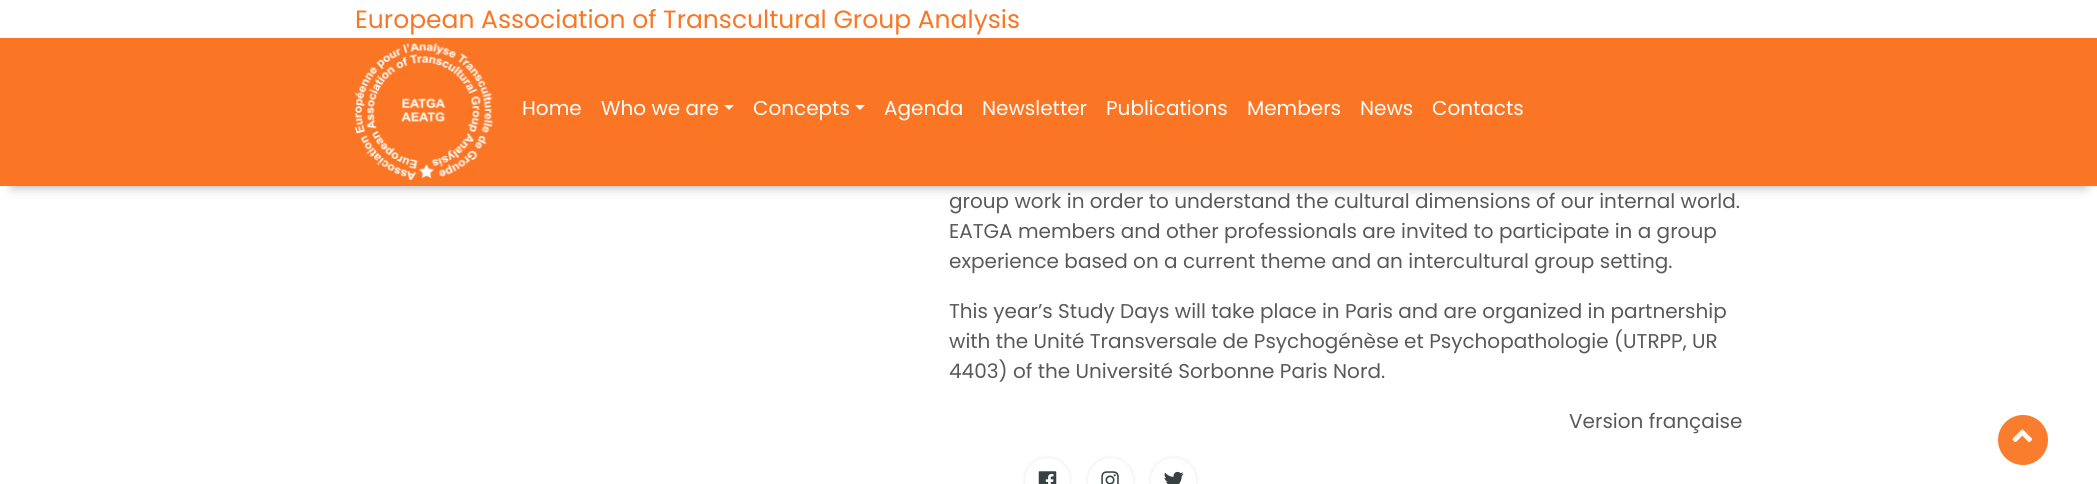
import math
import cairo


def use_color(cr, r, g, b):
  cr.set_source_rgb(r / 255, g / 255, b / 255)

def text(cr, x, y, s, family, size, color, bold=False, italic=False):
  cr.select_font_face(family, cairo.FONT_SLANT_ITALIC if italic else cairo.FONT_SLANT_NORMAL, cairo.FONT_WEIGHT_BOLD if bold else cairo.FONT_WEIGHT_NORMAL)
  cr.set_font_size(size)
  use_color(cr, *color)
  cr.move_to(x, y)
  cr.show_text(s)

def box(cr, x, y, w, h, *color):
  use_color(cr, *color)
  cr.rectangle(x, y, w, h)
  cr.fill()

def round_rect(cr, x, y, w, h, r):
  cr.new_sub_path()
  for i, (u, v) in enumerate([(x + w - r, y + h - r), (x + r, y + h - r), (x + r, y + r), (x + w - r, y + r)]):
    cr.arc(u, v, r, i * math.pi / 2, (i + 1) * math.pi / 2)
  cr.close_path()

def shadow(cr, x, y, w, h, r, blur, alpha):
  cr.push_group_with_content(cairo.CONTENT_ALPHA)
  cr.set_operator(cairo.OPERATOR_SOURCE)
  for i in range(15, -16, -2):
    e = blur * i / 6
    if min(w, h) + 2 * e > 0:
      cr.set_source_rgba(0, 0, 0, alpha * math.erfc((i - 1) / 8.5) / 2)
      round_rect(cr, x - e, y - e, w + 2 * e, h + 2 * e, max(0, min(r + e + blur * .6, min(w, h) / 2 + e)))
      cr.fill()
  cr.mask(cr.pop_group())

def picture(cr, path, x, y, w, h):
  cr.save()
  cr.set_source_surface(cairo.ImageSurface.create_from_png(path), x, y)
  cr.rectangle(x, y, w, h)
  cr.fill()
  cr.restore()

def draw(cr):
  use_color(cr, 255, 255, 255)
  cr.paint()
  use_color(cr, 0, 0, 0)
  shadow(cr, 13, 63, 2072, 123, 0, 6, 0.35)
  box(cr, 0, 38, 2097, 148, 250, 118, 36)
  picture(cr, "img_01.png", 355, 43, 138, 137)
  use_color(cr, 255, 255, 255)
  cr.new_path()
  cr.move_to(724, 105)
  cr.line_to(734, 105)
  cr.line_to(729, 110)
  cr.close_path()
  cr.fill()
  cr.new_path()
  cr.move_to(855, 105)
  cr.line_to(865, 105)
  cr.line_to(860, 110)
  cr.close_path()
  cr.fill()
  use_color(cr, 0, 0, 0)
  shadow(cr, 1025, 458, 45, 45, 22.5, 2, 0.1)
  use_color(cr, 255, 255, 255)
  cr.arc(1047.5, 480.5, 22.5, 0, 2 * math.pi)
  cr.fill()
  picture(cr, "img_02.png", 1038, 471, 19, 13)
  use_color(cr, 0, 0, 0)
  shadow(cr, 1088, 458, 45, 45, 22.5, 2, 0.1)
  use_color(cr, 255, 255, 255)
  cr.arc(1110.5, 480.5, 22, 0, 2 * math.pi)
  cr.fill_preserve()
  cr.set_line_width(1)
  cr.stroke()
  picture(cr, "img_03.png", 1101, 471, 18, 13)
  use_color(cr, 0, 0, 0)
  shadow(cr, 1151, 458, 45, 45, 22.5, 2, 0.1)
  use_color(cr, 255, 255, 255)
  cr.arc(1173.5, 480.5, 22, 0, 2 * math.pi)
  cr.fill_preserve()
  cr.stroke()
  picture(cr, "img_04.png", 1164, 471, 20, 13)
  use_color(cr, 250, 124, 45)
  cr.arc(2023, 440, 25, 0, 2 * math.pi)
  cr.fill()
  picture(cr, "img_05.png", 2012, 429, 21, 14)
  text(cr, 355, 28, "European Association of Transcultural Group Analysis", "Poppins", 25, (250, 118, 36))
  text(cr, 522, 115, "Home", "Poppins", 20, (255, 255, 255))
  text(cr, 601, 115, "Who we are", "Poppins", 20, (255, 255, 255))
  text(cr, 753, 115, "Concepts", "Poppins", 20, (255, 255, 255))
  text(cr, 884, 115, "Agenda", "Poppins", 20, (255, 255, 255))
  text(cr, 982, 115, "Newsletter", "Poppins", 20, (255, 255, 255))
  text(cr, 1106, 115, "Publications", "Poppins", 20, (255, 255, 255))
  text(cr, 1247, 115, "Members", "Poppins", 20, (255, 255, 255))
  text(cr, 1360, 115, "News", "Poppins", 20, (255, 255, 255))
  text(cr, 1432, 115, "Contacts", "Poppins", 20, (255, 255, 255))
  text(cr, 949, 208, "group work in order to understand the cultural dimensions of our internal world.", "Poppins", 20, (89, 89, 89))
  text(cr, 949, 238, "EATGA members and other professionals are invited to participate in a group", "Poppins", 20, (89, 89, 89))
  text(cr, 949, 268, "experience based on a current theme and an intercultural group setting.", "Poppins", 20, (89, 89, 89))
  text(cr, 949, 318, "This year’s Study Days will take place in Paris and are organized in partnership", "Poppins", 20, (89, 89, 89))
  text(cr, 949, 348, "with the Unité Transversale de Psychogénèse et Psychopathologie (UTRPP, UR", "Poppins", 20, (89, 89, 89))
  text(cr, 949, 378, "4403) of the Université Sorbonne Paris Nord.", "Poppins", 20, (89, 89, 89))
  text(cr, 1569, 428, "Version française", "Poppins", 20, (89, 89, 89))


surface = cairo.ImageSurface(cairo.FORMAT_RGB24, 2097, 484)
cr = cairo.Context(surface)
options = cairo.FontOptions()
options.set_hint_metrics(cairo.HINT_METRICS_OFF)
options.set_hint_style(cairo.HINT_STYLE_NONE)
cr.set_font_options(options)
cr.set_miter_limit(4)
draw(cr)
surface.write_to_png("out.png")
